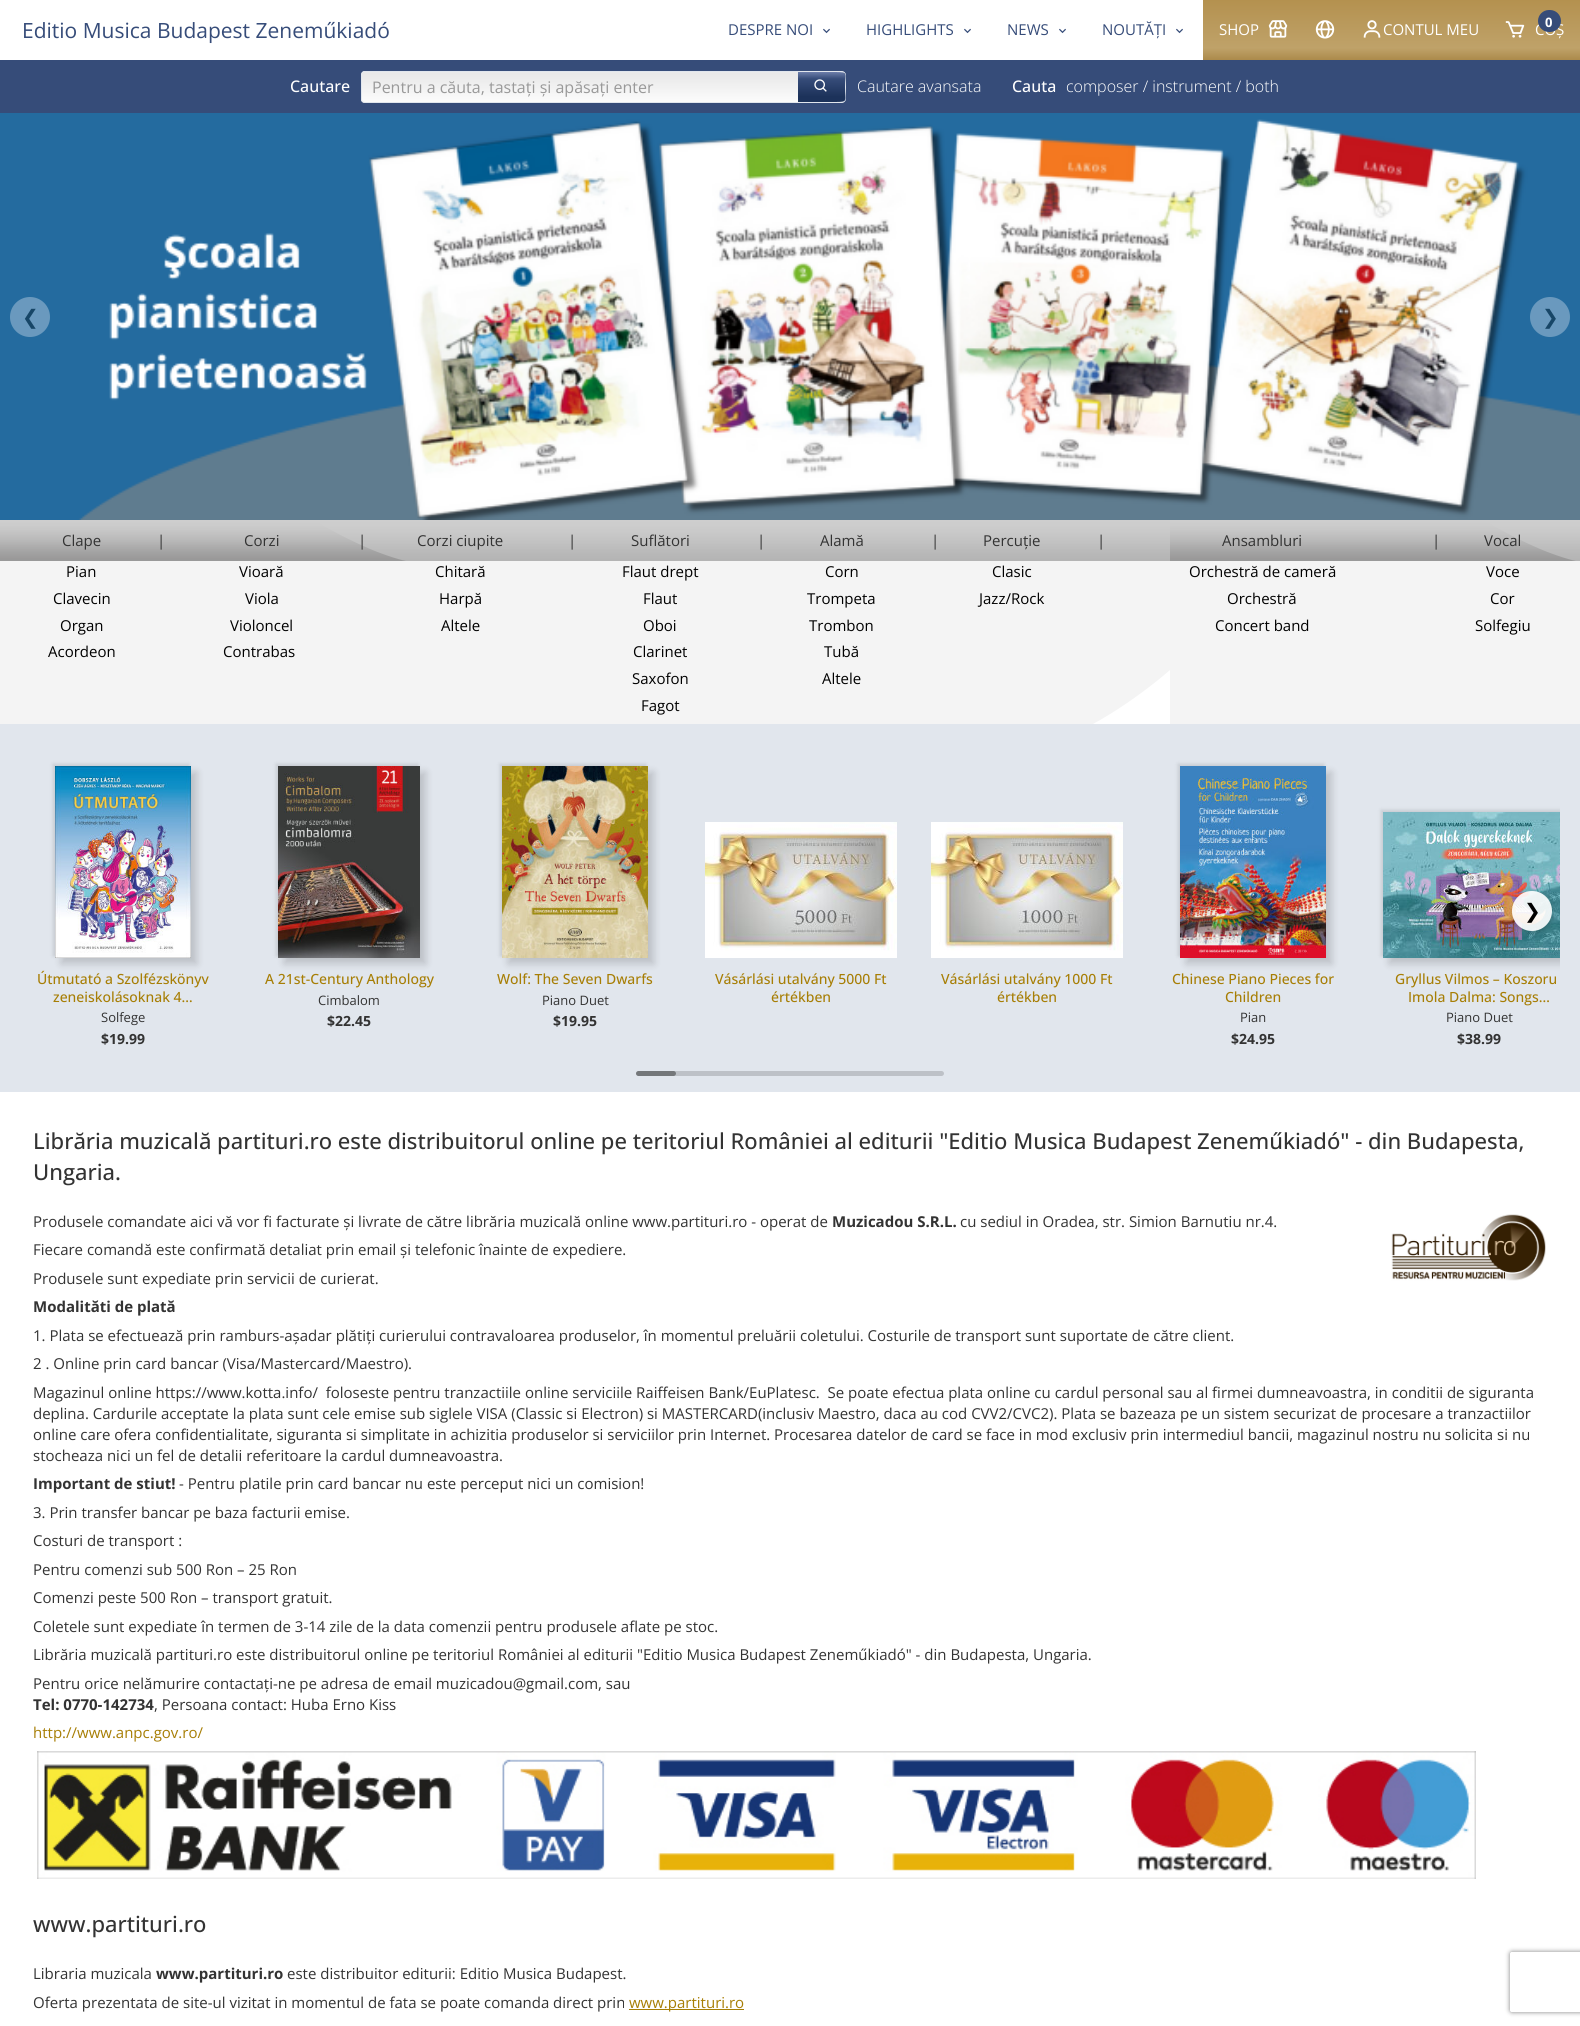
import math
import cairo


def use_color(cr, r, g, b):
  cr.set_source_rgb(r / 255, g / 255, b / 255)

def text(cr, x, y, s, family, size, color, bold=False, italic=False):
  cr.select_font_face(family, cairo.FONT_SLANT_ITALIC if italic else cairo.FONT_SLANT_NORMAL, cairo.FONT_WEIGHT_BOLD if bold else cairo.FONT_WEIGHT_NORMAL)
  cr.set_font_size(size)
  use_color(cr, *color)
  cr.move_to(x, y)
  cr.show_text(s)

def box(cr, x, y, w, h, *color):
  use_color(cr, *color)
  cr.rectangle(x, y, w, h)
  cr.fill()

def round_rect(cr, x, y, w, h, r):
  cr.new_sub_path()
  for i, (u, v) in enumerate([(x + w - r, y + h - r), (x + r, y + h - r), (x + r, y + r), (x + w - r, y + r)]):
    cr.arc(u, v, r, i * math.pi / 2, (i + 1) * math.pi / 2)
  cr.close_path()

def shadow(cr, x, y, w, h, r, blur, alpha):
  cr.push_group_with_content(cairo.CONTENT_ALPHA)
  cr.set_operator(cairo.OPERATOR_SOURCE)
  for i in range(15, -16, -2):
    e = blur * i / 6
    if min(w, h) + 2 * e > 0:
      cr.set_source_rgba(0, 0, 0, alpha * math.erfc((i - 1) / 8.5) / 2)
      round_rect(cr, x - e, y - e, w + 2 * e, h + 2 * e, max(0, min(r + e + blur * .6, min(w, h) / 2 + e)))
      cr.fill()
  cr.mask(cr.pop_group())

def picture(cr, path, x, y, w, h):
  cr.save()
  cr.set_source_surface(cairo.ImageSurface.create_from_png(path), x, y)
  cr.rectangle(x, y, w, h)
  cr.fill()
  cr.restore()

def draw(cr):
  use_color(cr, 255, 255, 255)
  cr.paint()
  picture(cr, "img_01.png", 823, 28, 7, 6)
  picture(cr, "img_01.png", 964, 28, 7, 6)
  picture(cr, "img_01.png", 1059, 28, 7, 6)
  picture(cr, "img_01.png", 1176, 28, 7, 6)
  gradient = cairo.LinearGradient(1392, 0, 1392, 60)
  gradient.add_color_stop_rgba(0, 0.706, 0.569, 0.31, 1)
  gradient.add_color_stop_rgba(0.8, 0.749, 0.635, 0.412, 1)
  gradient.add_color_stop_rgba(1, 0.671, 0.541, 0.294, 1)
  cr.set_source(gradient)
  cr.rectangle(1203, 0, 377, 60)
  cr.fill()
  picture(cr, "img_02.png", 1268, 20, 20, 18)
  picture(cr, "img_03.png", 1315, 20, 20, 19)
  picture(cr, "img_04.png", 1363, 20, 18, 18)
  picture(cr, "img_05.png", 1505, 21, 20, 17)
  box(cr, 0, 60, 1580, 53, 54, 76, 121)
  picture(cr, "img_06.png", 361, 71, 437, 32)
  use_color(cr, 225, 230, 237)
  cr.set_fill_rule(cairo.FILL_RULE_EVEN_ODD)
  cr.new_path()
  cr.move_to(365, 71)
  cr.line_to(799, 71)
  cr.line_to(799, 103)
  cr.line_to(365, 103)
  cr.curve_to(363, 103, 361, 101, 361, 99)
  cr.line_to(361, 75)
  cr.curve_to(361, 73, 363, 71, 365, 71)
  cr.close_path()
  cr.move_to(365, 72)
  cr.line_to(799, 72)
  cr.line_to(799, 102)
  cr.line_to(365, 102)
  cr.curve_to(363, 102, 362, 101, 362, 99)
  cr.line_to(362, 75)
  cr.curve_to(362, 73, 363, 72, 365, 72)
  cr.close_path()
  cr.fill()
  gradient = cairo.LinearGradient(822, 72, 822, 102)
  gradient.add_color_stop_rgba(0, 0.427, 0.494, 0.667, 1)
  gradient.add_color_stop_rgba(0.23, 0.212, 0.298, 0.475, 1)
  gradient.add_color_stop_rgba(0.82, 0.11, 0.196, 0.353, 1)
  cr.set_source(gradient)
  cr.new_path()
  cr.move_to(798, 72)
  cr.line_to(842, 72)
  cr.curve_to(843.5, 72, 845, 73.5, 845, 75)
  cr.line_to(845, 99)
  cr.curve_to(845, 100.5, 843.5, 102, 842, 102)
  cr.line_to(798, 102)
  cr.close_path()
  cr.fill()
  use_color(cr, 225, 230, 237)
  cr.new_path()
  cr.move_to(798, 71)
  cr.line_to(842, 71)
  cr.curve_to(844, 71, 846, 73, 846, 75)
  cr.line_to(846, 99)
  cr.curve_to(846, 101, 844, 103, 842, 103)
  cr.line_to(798, 103)
  cr.close_path()
  cr.move_to(798, 72)
  cr.line_to(835, 72)
  cr.curve_to(849, 72, 845, 73, 845, 87)
  cr.curve_to(845, 101, 849, 102, 835, 102)
  cr.line_to(798, 102)
  cr.close_path()
  cr.fill()
  picture(cr, "img_07.png", 814, 79, 13, 13)
  picture(cr, "img_08.png", 0, 113, 1580, 407)
  cr.set_source_rgba(0.443, 0.624, 0.757, 0.9)
  cr.arc(30, 317, 20, 0, 2 * math.pi)
  cr.fill()
  cr.arc(1550, 317, 20, 0, 2 * math.pi)
  cr.fill()
  picture(cr, "img_09.png", 0, 520, 1580, 204)
  box(cr, 0, 724, 1580, 368, 225, 230, 237)
  cr.save()
  cr.set_fill_rule(cairo.FILL_RULE_WINDING)
  cr.rectangle(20, 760, 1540, 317)
  cr.clip()
  use_color(cr, 0, 0, 0)
  shadow(cr, 1381, 810, 192, 146, 0, 2, 0.12)
  shadow(cr, 1389, 818, 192, 146, 0, 4, 0.16)
  cr.restore()
  picture(cr, "img_16.png", 1383, 812, 177, 146)
  cr.save()
  cr.new_path()
  cr.move_to(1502, 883)
  cr.line_to(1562, 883)
  cr.line_to(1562, 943)
  cr.line_to(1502, 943)
  cr.close_path()
  cr.move_to(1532, 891)
  cr.curve_to(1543, 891, 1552, 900, 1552, 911)
  cr.curve_to(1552, 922, 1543, 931, 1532, 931)
  cr.curve_to(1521, 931, 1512, 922, 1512, 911)
  cr.curve_to(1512, 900, 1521, 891, 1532, 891)
  cr.close_path()
  cr.clip()
  use_color(cr, 0, 0, 0)
  shadow(cr, 1512, 893, 40, 40, 20, 3, 0.2)
  cr.restore()
  cr.set_source_rgba(1, 1, 1, 0.9)
  cr.arc(1532, 911, 20, 0, 2 * math.pi)
  cr.fill()
  use_color(cr, 0, 0, 0)
  shadow(cr, 53, 764, 136, 192, 0, 2, 0.12)
  shadow(cr, 61, 772, 136, 192, 0, 4, 0.16)
  picture(cr, "img_10.png", 55, 766, 136, 192)
  shadow(cr, 276, 764, 142, 192, 0, 2, 0.12)
  shadow(cr, 284, 772, 142, 192, 0, 4, 0.16)
  picture(cr, "img_11.png", 278, 766, 142, 192)
  shadow(cr, 500, 764, 146, 192, 0, 2, 0.12)
  shadow(cr, 508, 772, 146, 192, 0, 4, 0.16)
  picture(cr, "img_12.png", 502, 766, 146, 192)
  picture(cr, "img_13.png", 705, 822, 192, 136)
  picture(cr, "img_14.png", 931, 822, 192, 136)
  shadow(cr, 1178, 764, 146, 192, 0, 2, 0.12)
  shadow(cr, 1186, 772, 146, 192, 0, 4, 0.16)
  picture(cr, "img_15.png", 1180, 766, 146, 192)
  use_color(cr, 189, 193, 199)
  round_rect(cr, 636, 1071, 308, 5, 2.5)
  cr.fill()
  cr.set_source_rgba(0.176, 0.18, 0.184, 0.5)
  round_rect(cr, 636, 1071, 40, 5, 2.5)
  cr.fill()
  picture(cr, "img_17.png", 1391, 1214, 155, 67)
  picture(cr, "img_18.png", 37, 1751, 1439, 128)
  box(cr, 629, 2009, 115, 1, 167, 126, 5)
  cr.save()
  cr.new_path()
  cr.move_to(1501, 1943)
  cr.line_to(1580, 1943)
  cr.line_to(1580, 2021)
  cr.line_to(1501, 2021)
  cr.close_path()
  cr.move_to(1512, 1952)
  cr.line_to(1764, 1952)
  cr.curve_to(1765, 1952, 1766, 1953, 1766, 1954)
  cr.line_to(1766, 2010)
  cr.curve_to(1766, 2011, 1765, 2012, 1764, 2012)
  cr.line_to(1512, 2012)
  cr.curve_to(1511, 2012, 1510, 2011, 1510, 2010)
  cr.line_to(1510, 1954)
  cr.curve_to(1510, 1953, 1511, 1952, 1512, 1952)
  cr.close_path()
  cr.clip()
  use_color(cr, 128, 128, 128)
  shadow(cr, 1510, 1952, 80, 60, 2, 2.5, 1)
  cr.restore()
  text(cr, 22, 38, "Editio Musica Budapest Zeneműkiadó", "Open Sans", 21, (54, 76, 121))
  text(cr, 728, 35, "DESPRE NOI", "Open Sans", 15, (54, 76, 121))
  text(cr, 866, 35, "HIGHLIGHTS", "Open Sans", 15, (54, 76, 121))
  text(cr, 1007, 35, "NEWS", "Open Sans", 15, (54, 76, 121))
  text(cr, 1102, 35, "NOUTĂȚI", "Open Sans", 15, (54, 76, 121))
  text(cr, 1219, 35, "SHOP", "Open Sans", 15, (255, 255, 255))
  text(cr, 1383, 35, "CONTUL MEU", "Open Sans", 15, (255, 255, 255))
  text(cr, 1535, 35, "COȘ", "Open Sans", 15, (255, 255, 255))
  use_color(cr, 54, 76, 121)
  round_rect(cr, 1538, 10, 23, 22, 11)
  cr.fill()
  text(cr, 1545, 27, "0", "Open Sans", 13, (255, 255, 255), bold=True)
  text(cr, 290, 92, "Cautare", "Open Sans Medium", 16, (255, 255, 255))
  text(cr, 372, 93, "Pentru a căuta, tastați și apăsați enter", "Open Sans", 16, (153, 153, 153))
  text(cr, 857, 92, "Cautare avansata", "Open Sans Light", 16, (255, 255, 255))
  text(cr, 1012, 92, "Cauta", "Open Sans Medium", 16, (255, 255, 255))
  text(cr, 1066, 92, "composer / instrument / both", "Open Sans Light", 16, (255, 255, 255))
  text(cr, 22, 324, "❮", "DejaVu Sans", 20, (23, 70, 103))
  text(cr, 1542, 324, "❯", "DejaVu Sans", 20, (23, 70, 103))
  text(cr, 62, 546, "Clape", "Open Sans", 15, (51, 51, 51))
  text(cr, 157, 546, "|", "Open Sans", 15, (51, 51, 51))
  text(cr, 244, 546, "Corzi", "Open Sans", 15, (51, 51, 51))
  text(cr, 358, 546, "|", "Open Sans", 15, (51, 51, 51))
  text(cr, 417, 546, "Corzi ciupite", "Open Sans", 15, (51, 51, 51))
  text(cr, 568, 546, "|", "Open Sans", 15, (51, 51, 51))
  text(cr, 631, 546, "Suflători", "Open Sans", 15, (51, 51, 51))
  text(cr, 757, 546, "|", "Open Sans", 15, (51, 51, 51))
  text(cr, 820, 546, "Alamă", "Open Sans", 15, (51, 51, 51))
  text(cr, 931, 546, "|", "Open Sans", 15, (51, 51, 51))
  text(cr, 983, 546, "Percuție", "Open Sans", 15, (51, 51, 51))
  text(cr, 1097, 546, "|", "Open Sans", 15, (51, 51, 51))
  text(cr, 1222, 546, "Ansambluri", "Open Sans", 15, (51, 51, 51))
  text(cr, 1432, 546, "|", "Open Sans", 15, (51, 51, 51))
  text(cr, 1484, 546, "Vocal", "Open Sans", 15, (51, 51, 51))
  text(cr, 66, 577, "Pian", "Open Sans", 15, (0, 0, 0))
  text(cr, 53, 604, "Clavecin", "Open Sans", 15, (0, 0, 0))
  text(cr, 60, 631, "Organ", "Open Sans", 15, (0, 0, 0))
  text(cr, 48, 657, "Acordeon", "Open Sans", 15, (0, 0, 0))
  text(cr, 239, 577, "Vioară", "Open Sans", 15, (0, 0, 0))
  text(cr, 245, 604, "Viola", "Open Sans", 15, (0, 0, 0))
  text(cr, 230, 631, "Violoncel", "Open Sans", 15, (0, 0, 0))
  text(cr, 223, 657, "Contrabas", "Open Sans", 15, (0, 0, 0))
  text(cr, 435, 577, "Chitară", "Open Sans", 15, (0, 0, 0))
  text(cr, 439, 604, "Harpă", "Open Sans", 15, (0, 0, 0))
  text(cr, 441, 631, "Altele", "Open Sans", 15, (0, 0, 0))
  text(cr, 622, 577, "Flaut drept", "Open Sans", 15, (0, 0, 0))
  text(cr, 643, 604, "Flaut", "Open Sans", 15, (0, 0, 0))
  text(cr, 643, 631, "Oboi", "Open Sans", 15, (0, 0, 0))
  text(cr, 633, 657, "Clarinet", "Open Sans", 15, (0, 0, 0))
  text(cr, 632, 684, "Saxofon", "Open Sans", 15, (0, 0, 0))
  text(cr, 641, 711, "Fagot", "Open Sans", 15, (0, 0, 0))
  text(cr, 825, 577, "Corn", "Open Sans", 15, (0, 0, 0))
  text(cr, 807, 604, "Trompeta", "Open Sans", 15, (0, 0, 0))
  text(cr, 809, 631, "Trombon", "Open Sans", 15, (0, 0, 0))
  text(cr, 824, 657, "Tubă", "Open Sans", 15, (0, 0, 0))
  text(cr, 822, 684, "Altele", "Open Sans", 15, (0, 0, 0))
  text(cr, 992, 577, "Clasic", "Open Sans", 15, (0, 0, 0))
  text(cr, 979, 604, "Jazz/Rock", "Open Sans", 15, (0, 0, 0))
  text(cr, 1189, 577, "Orchestră de cameră", "Open Sans", 15, (0, 0, 0))
  text(cr, 1227, 604, "Orchestră", "Open Sans", 15, (0, 0, 0))
  text(cr, 1215, 631, "Concert band", "Open Sans", 15, (0, 0, 0))
  text(cr, 1486, 577, "Voce", "Open Sans", 15, (0, 0, 0))
  text(cr, 1490, 604, "Cor", "Open Sans", 15, (0, 0, 0))
  text(cr, 1475, 631, "Solfegiu", "Open Sans", 15, (0, 0, 0))
  text(cr, 1524, 918, "❯", "DejaVu Sans", 20, (0, 0, 0))
  text(cr, 37, 984, "Útmutató a Szolfézskönyv", "Open Sans Medium", 14, (167, 126, 5))
  text(cr, 53, 1002, "zeneiskolásoknak 4…", "Open Sans Medium", 14, (167, 126, 5))
  text(cr, 101, 1022, "Solfege", "Open Sans", 13, (51, 51, 51))
  text(cr, 101, 1044, "$19.99", "Open Sans", 14, (51, 51, 51), bold=True)
  text(cr, 265, 984, "A 21st-Century Anthology", "Open Sans Medium", 14, (167, 126, 5))
  text(cr, 318, 1005, "Cimbalom", "Open Sans", 13, (51, 51, 51))
  text(cr, 327, 1026, "$22.45", "Open Sans", 14, (51, 51, 51), bold=True)
  text(cr, 497, 984, "Wolf: The Seven Dwarfs", "Open Sans Medium", 14, (167, 126, 5))
  text(cr, 542, 1005, "Piano Duet", "Open Sans", 13, (51, 51, 51))
  text(cr, 553, 1026, "$19.95", "Open Sans", 14, (51, 51, 51), bold=True)
  text(cr, 715, 984, "Vásárlási utalvány 5000 Ft", "Open Sans Medium", 14, (167, 126, 5))
  text(cr, 771, 1002, "értékben", "Open Sans Medium", 14, (167, 126, 5))
  text(cr, 941, 984, "Vásárlási utalvány 1000 Ft", "Open Sans Medium", 14, (167, 126, 5))
  text(cr, 997, 1002, "értékben", "Open Sans Medium", 14, (167, 126, 5))
  text(cr, 1172, 984, "Chinese Piano Pieces for", "Open Sans Medium", 14, (167, 126, 5))
  text(cr, 1225, 1002, "Children", "Open Sans Medium", 14, (167, 126, 5))
  text(cr, 1240, 1022, "Pian", "Open Sans", 13, (51, 51, 51))
  text(cr, 1231, 1044, "$24.95", "Open Sans", 14, (51, 51, 51), bold=True)
  text(cr, 1395, 984, "Gryllus Vilmos – Koszoru", "Open Sans Medium", 14, (167, 126, 5))
  text(cr, 1408, 1002, "Imola Dalma: Songs…", "Open Sans Medium", 14, (167, 126, 5))
  text(cr, 1446, 1022, "Piano Duet", "Open Sans", 13, (51, 51, 51))
  text(cr, 1457, 1044, "$38.99", "Open Sans", 14, (51, 51, 51), bold=True)
  text(cr, 33, 1149, "Librăria muzicală partituri.ro este distribuitorul online pe teritoriul României al editurii \"Editio Musica Budapest Zeneműkiadó\" - din Budapesta,", "Open Sans Medium", 22, (51, 51, 51))
  text(cr, 33, 1180, "Ungaria.", "Open Sans Medium", 22, (51, 51, 51))
  text(cr, 33, 1227, "Produsele comandate aici vă vor fi facturate și livrate de către librăria muzicală online www.partituri.ro - operat de", "Open Sans", 15, (51, 51, 51))
  text(cr, 832, 1227, "Muzicadou S.R.L.", "Open Sans", 15, (51, 51, 51), bold=True)
  text(cr, 960, 1227, "cu sediul in Oradea, str. Simion Barnutiu nr.4.", "Open Sans", 15, (51, 51, 51))
  text(cr, 33, 1255, "Fiecare comandă este confirmată detaliat prin email și telefonic înainte de expediere.", "Open Sans", 15, (51, 51, 51))
  text(cr, 33, 1284, "Produsele sunt expediate prin servicii de curierat.", "Open Sans", 15, (51, 51, 51))
  text(cr, 33, 1312, "Modalităti de plată", "Open Sans", 15, (51, 51, 51), bold=True)
  text(cr, 33, 1341, "1. Plata se efectuează prin ramburs-așadar plătiți curierului contravaloarea produselor, în momentul preluării coletului. Costurile de transport sunt suportate de către client.", "Open Sans", 15, (51, 51, 51))
  text(cr, 33, 1369, "2 . Online prin card bancar (Visa/Mastercard/Maestro).", "Open Sans", 15, (51, 51, 51))
  text(cr, 33, 1398, "Magazinul online https://www.kotta.info/  foloseste pentru tranzactiile online serviciile Raiffeisen Bank/EuPlatesc.  Se poate efectua plata online cu cardul personal sau al firmei dumneavoastra, in conditii de siguranta", "Open Sans", 15, (51, 51, 51))
  text(cr, 33, 1419, "deplina. Cardurile acceptate la plata sunt cele emise sub siglele VISA (Classic si Electron) si MASTERCARD(inclusiv Maestro, daca au cod CVV2/CVC2). Plata se bazeaza pe un sistem securizat de procesare a tranzactiilor", "Open Sans", 15, (51, 51, 51))
  text(cr, 33, 1440, "online care ofera confidentialitate, siguranta si simplitate in achizitia produselor si serviciilor prin Internet. Procesarea datelor de card se face in mod exclusiv prin intermediul bancii, magazinul nostru nu solicita si nu", "Open Sans", 15, (51, 51, 51))
  text(cr, 33, 1461, "stocheaza nici un fel de detalii referitoare la cardul dumneavoastra.", "Open Sans", 15, (51, 51, 51))
  text(cr, 33, 1489, "Important de stiut!", "Open Sans", 15, (51, 51, 51), bold=True)
  text(cr, 179, 1489, "- Pentru platile prin card bancar nu este perceput nici un comision!", "Open Sans", 15, (51, 51, 51))
  text(cr, 33, 1518, "3. Prin transfer bancar pe baza facturii emise.", "Open Sans", 15, (51, 51, 51))
  text(cr, 33, 1546, "Costuri de transport :", "Open Sans", 15, (51, 51, 51))
  text(cr, 33, 1575, "Pentru comenzi sub 500 Ron – 25 Ron", "Open Sans", 15, (51, 51, 51))
  text(cr, 33, 1603, "Comenzi peste 500 Ron – transport gratuit.", "Open Sans", 15, (51, 51, 51))
  text(cr, 33, 1632, "Coletele sunt expediate în termen de 3-14 zile de la data comenzii pentru produsele aflate pe stoc.", "Open Sans", 15, (51, 51, 51))
  text(cr, 33, 1660, "Librăria muzicală partituri.ro este distribuitorul online pe teritoriul României al editurii \"Editio Musica Budapest Zeneműkiadó\" - din Budapesta, Ungaria.", "Open Sans", 15, (51, 51, 51))
  text(cr, 33, 1689, "Pentru orice nelămurire contactați-ne pe adresa de email muzicadou@gmail.com, sau", "Open Sans", 15, (51, 51, 51))
  text(cr, 33, 1710, "Tel: 0770-142734", "Open Sans", 15, (51, 51, 51), bold=True)
  text(cr, 154, 1710, ", Persoana contact: Huba Erno Kiss", "Open Sans", 15, (51, 51, 51))
  text(cr, 33, 1738, "http://www.anpc.gov.ro/", "Open Sans", 15, (167, 126, 5))
  text(cr, 33, 1932, "www.partituri.ro", "Open Sans Medium", 22, (51, 51, 51))
  text(cr, 33, 1979, "Libraria muzicala", "Open Sans", 15, (51, 51, 51))
  text(cr, 156, 1979, "www.partituri.ro", "Open Sans", 15, (51, 51, 51), bold=True)
  text(cr, 287, 1979, "este distribuitor editurii: Editio Musica Budapest.", "Open Sans", 15, (51, 51, 51))
  text(cr, 33, 2008, "Oferta prezentata de site-ul vizitat in momentul de fata se poate comanda direct prin", "Open Sans", 15, (51, 51, 51))
  text(cr, 629, 2008, "www.partituri.ro", "Open Sans", 15, (167, 126, 5))


surface = cairo.ImageSurface(cairo.FORMAT_RGB24, 1580, 2026)
cr = cairo.Context(surface)
options = cairo.FontOptions()
options.set_hint_metrics(cairo.HINT_METRICS_OFF)
options.set_hint_style(cairo.HINT_STYLE_NONE)
cr.set_font_options(options)
cr.set_miter_limit(4)
draw(cr)
surface.write_to_png("out.png")
